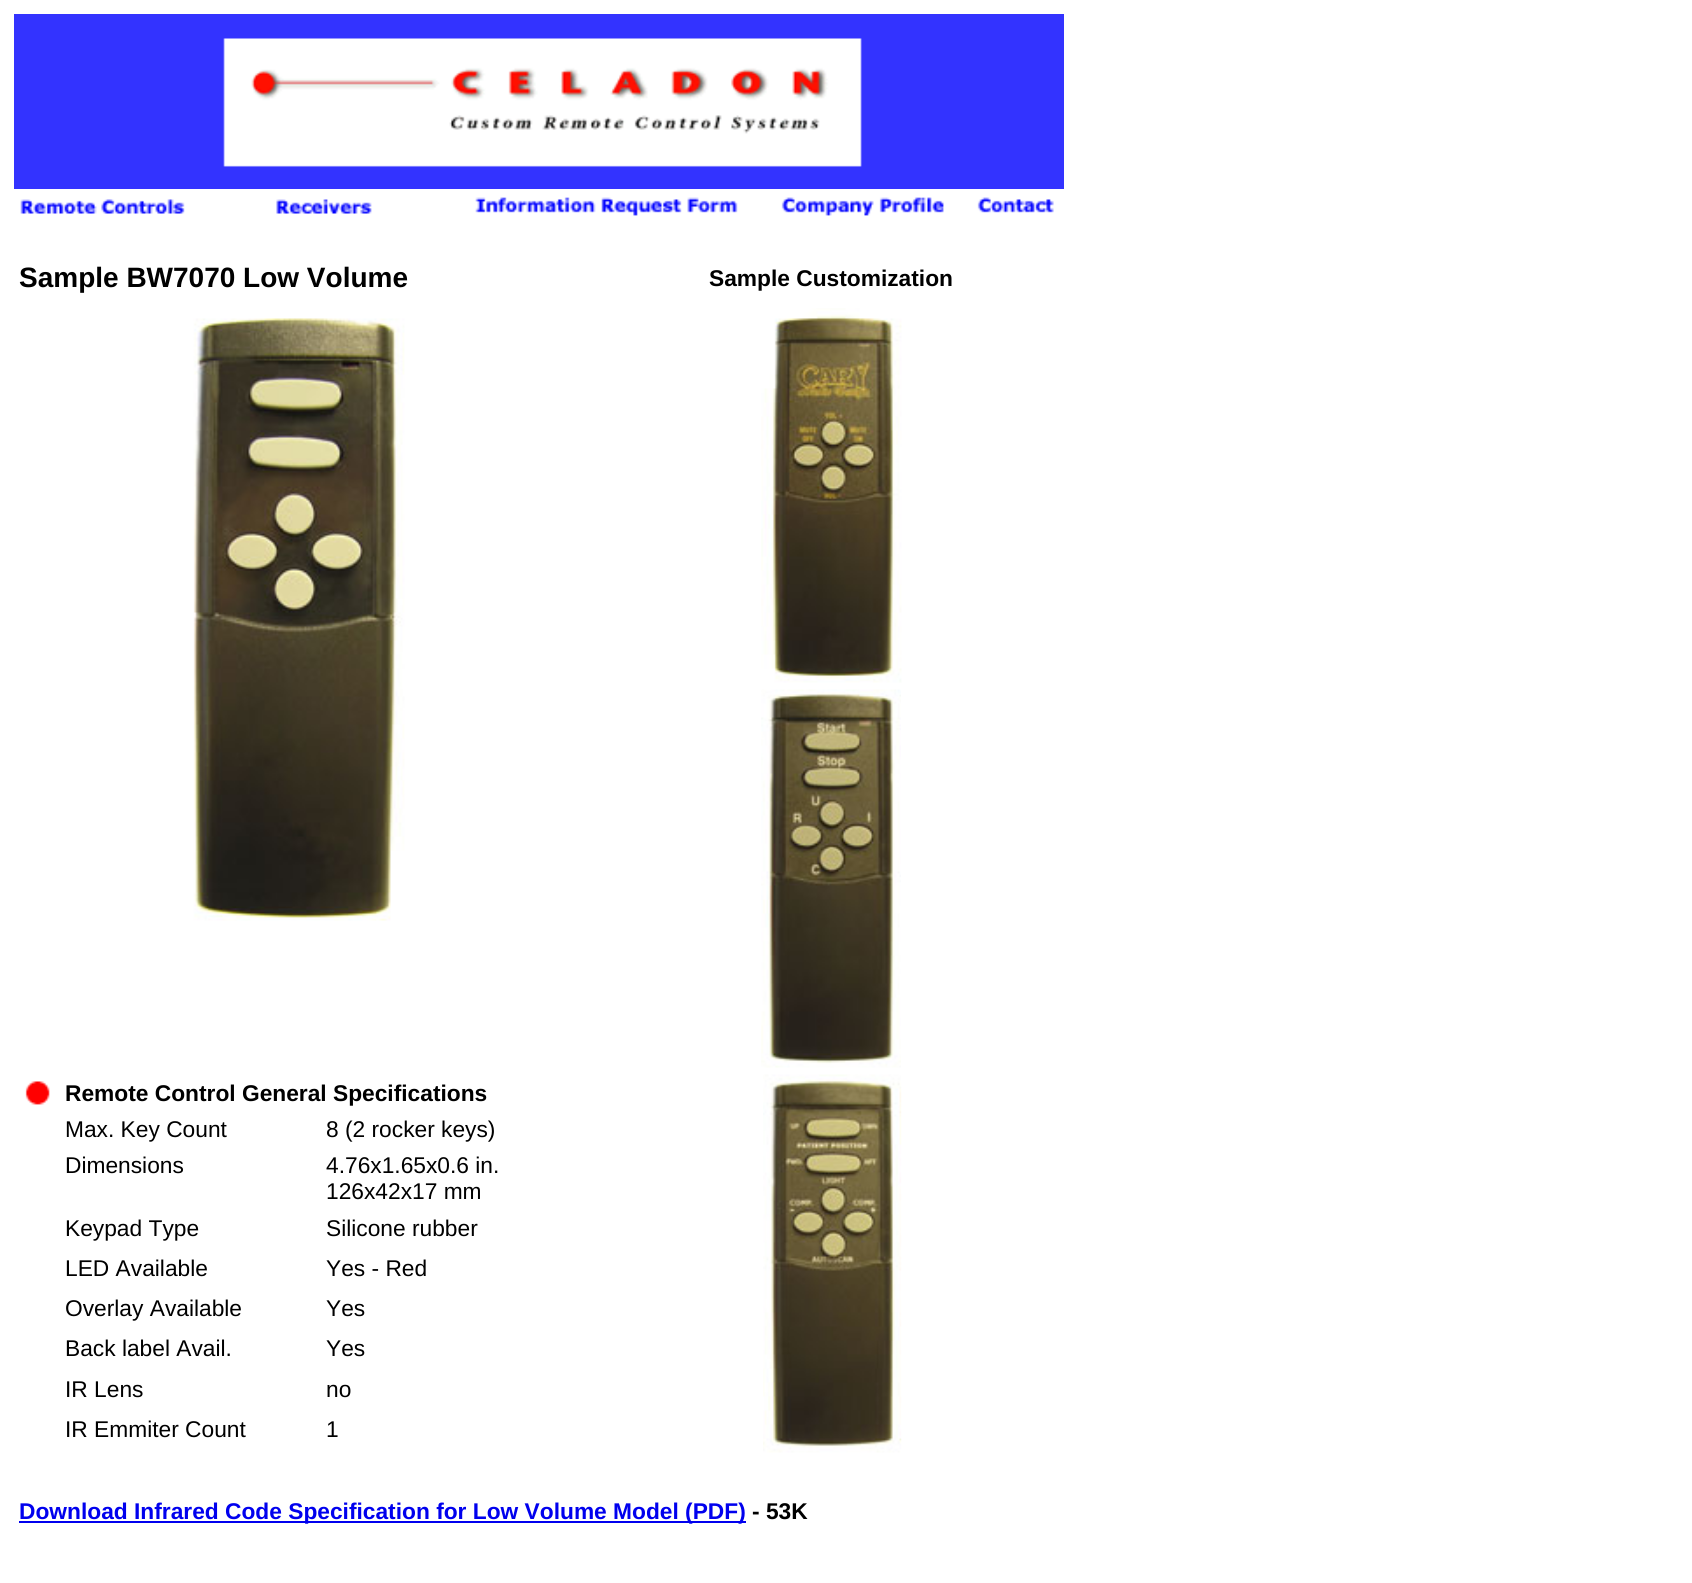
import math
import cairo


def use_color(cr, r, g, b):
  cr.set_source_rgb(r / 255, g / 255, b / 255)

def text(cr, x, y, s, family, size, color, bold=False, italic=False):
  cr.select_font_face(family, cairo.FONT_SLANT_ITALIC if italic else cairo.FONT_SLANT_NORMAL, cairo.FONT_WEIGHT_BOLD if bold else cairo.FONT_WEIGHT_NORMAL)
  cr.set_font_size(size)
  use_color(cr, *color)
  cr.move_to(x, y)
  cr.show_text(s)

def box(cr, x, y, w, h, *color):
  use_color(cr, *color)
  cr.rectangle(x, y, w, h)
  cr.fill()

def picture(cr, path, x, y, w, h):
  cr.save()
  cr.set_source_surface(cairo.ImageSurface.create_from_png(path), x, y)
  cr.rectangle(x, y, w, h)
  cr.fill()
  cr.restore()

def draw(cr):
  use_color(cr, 255, 255, 255)
  cr.paint()
  picture(cr, "img_01.png", 14, 14, 1050, 175)
  picture(cr, "img_02.png", 20, 199, 165, 15)
  picture(cr, "img_03.png", 276, 199, 96, 15)
  picture(cr, "img_04.png", 475, 197, 263, 19)
  picture(cr, "img_05.png", 781, 197, 163, 19)
  picture(cr, "img_06.png", 977, 197, 77, 16)
  picture(cr, "img_07.png", 193, 318, 212, 603)
  picture(cr, "img_08.png", 761, 308, 141, 375)
  picture(cr, "img_09.png", 761, 689, 140, 379)
  picture(cr, "img_10.png", 25, 1081, 25, 24)
  picture(cr, "img_11.png", 763, 1074, 139, 379)
  box(cr, 19, 1521, 727, 2, 0, 0, 238)
  text(cr, 19, 287, "Sample BW7070 Low Volume", "Liberation Sans", 28, (0, 0, 0), bold=True)
  text(cr, 709, 286, "Sample Customization", "Liberation Sans", 22.75, (0, 0, 0), bold=True)
  text(cr, 65, 1101, "Remote Control General Specifications", "Liberation Sans", 22.75, (0, 0, 0), bold=True)
  text(cr, 65, 1137, "Max. Key Count", "Liberation Sans", 22.75, (0, 0, 0))
  text(cr, 326, 1137, "8 (2 rocker keys)", "Liberation Sans", 22.75, (0, 0, 0))
  text(cr, 65, 1173, "Dimensions", "Liberation Sans", 22.75, (0, 0, 0))
  text(cr, 326, 1173, "4.76x1.65x0.6 in.", "Liberation Sans", 22.75, (0, 0, 0))
  text(cr, 326, 1199, "126x42x17 mm", "Liberation Sans", 22.75, (0, 0, 0))
  text(cr, 65, 1236, "Keypad Type", "Liberation Sans", 22.75, (0, 0, 0))
  text(cr, 326, 1236, "Silicone rubber", "Liberation Sans", 22.75, (0, 0, 0))
  text(cr, 65, 1276, "LED Available", "Liberation Sans", 22.75, (0, 0, 0))
  text(cr, 326, 1276, "Yes - Red", "Liberation Sans", 22.75, (0, 0, 0))
  text(cr, 65, 1316, "Overlay Available", "Liberation Sans", 22.75, (0, 0, 0))
  text(cr, 326, 1316, "Yes", "Liberation Sans", 22.75, (0, 0, 0))
  text(cr, 65, 1356, "Back label Avail.", "Liberation Sans", 22.75, (0, 0, 0))
  text(cr, 326, 1356, "Yes", "Liberation Sans", 22.75, (0, 0, 0))
  text(cr, 65, 1397, "IR Lens", "Liberation Sans", 22.75, (0, 0, 0))
  text(cr, 326, 1397, "no", "Liberation Sans", 22.75, (0, 0, 0))
  text(cr, 65, 1437, "IR Emmiter Count", "Liberation Sans", 22.75, (0, 0, 0))
  text(cr, 326, 1437, "1", "Liberation Sans", 22.75, (0, 0, 0))
  text(cr, 19, 1519, "Download Infrared Code Specification for Low Volume Model (PDF)", "Liberation Sans", 22.75, (0, 0, 238), bold=True)
  text(cr, 752, 1519, "- 53K", "Liberation Sans", 22.75, (0, 0, 0), bold=True)


surface = cairo.ImageSurface(cairo.FORMAT_RGB24, 1692, 1583)
cr = cairo.Context(surface)
options = cairo.FontOptions()
options.set_hint_metrics(cairo.HINT_METRICS_OFF)
options.set_hint_style(cairo.HINT_STYLE_NONE)
cr.set_font_options(options)
cr.set_miter_limit(4)
draw(cr)
surface.write_to_png("out.png")
